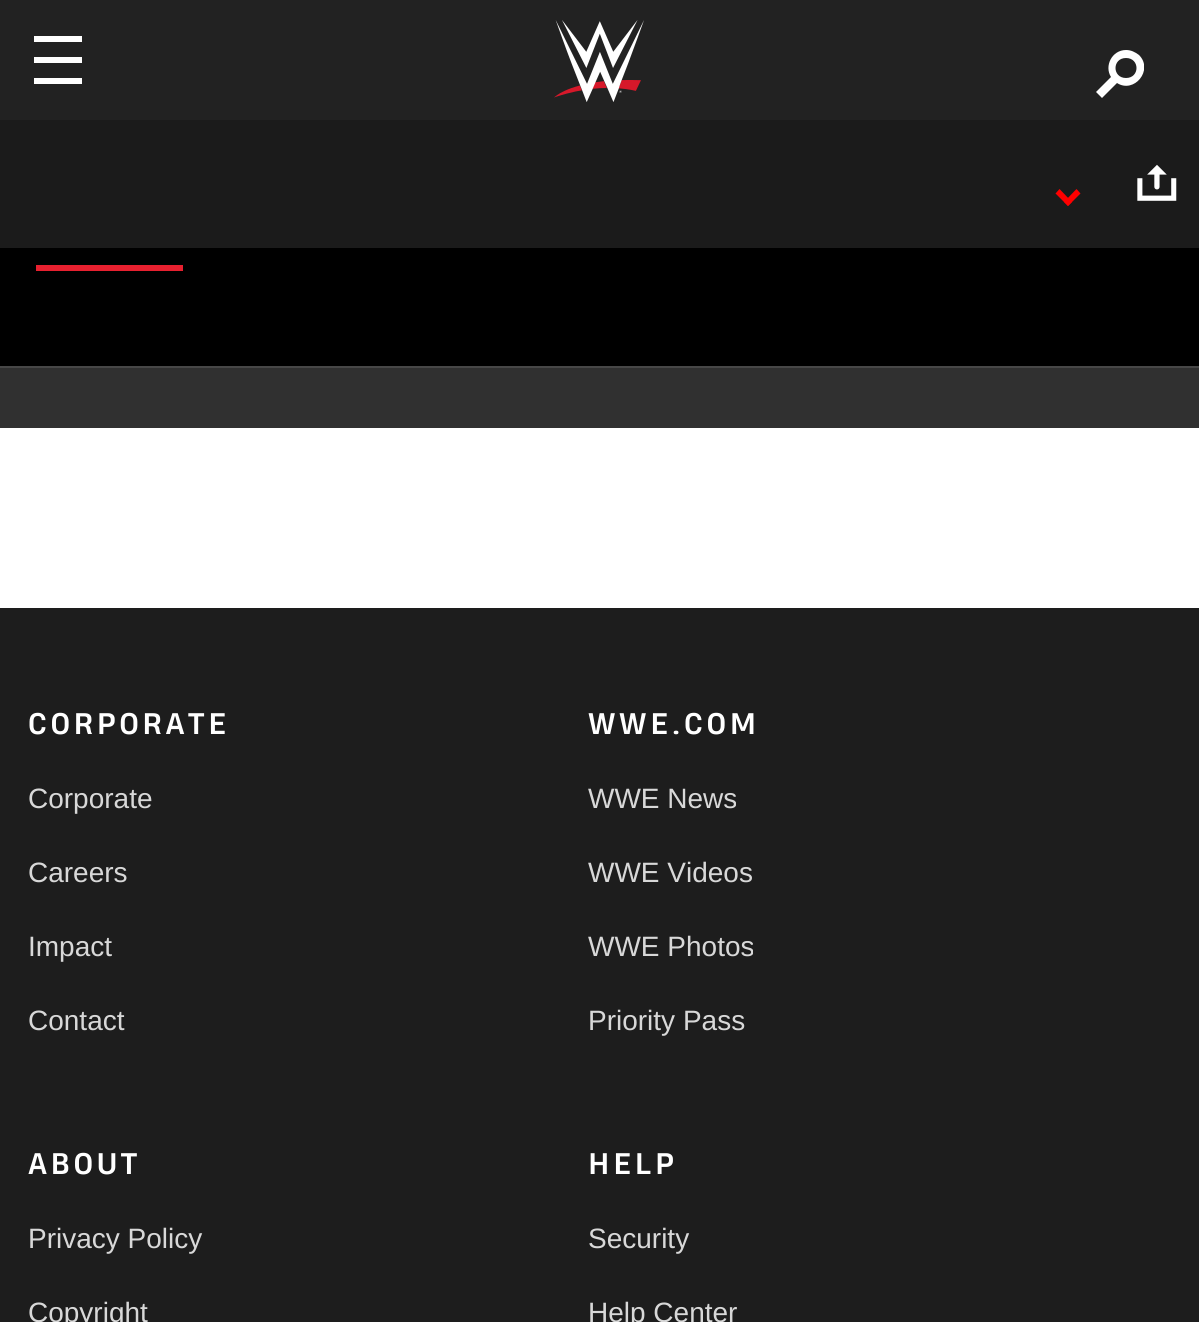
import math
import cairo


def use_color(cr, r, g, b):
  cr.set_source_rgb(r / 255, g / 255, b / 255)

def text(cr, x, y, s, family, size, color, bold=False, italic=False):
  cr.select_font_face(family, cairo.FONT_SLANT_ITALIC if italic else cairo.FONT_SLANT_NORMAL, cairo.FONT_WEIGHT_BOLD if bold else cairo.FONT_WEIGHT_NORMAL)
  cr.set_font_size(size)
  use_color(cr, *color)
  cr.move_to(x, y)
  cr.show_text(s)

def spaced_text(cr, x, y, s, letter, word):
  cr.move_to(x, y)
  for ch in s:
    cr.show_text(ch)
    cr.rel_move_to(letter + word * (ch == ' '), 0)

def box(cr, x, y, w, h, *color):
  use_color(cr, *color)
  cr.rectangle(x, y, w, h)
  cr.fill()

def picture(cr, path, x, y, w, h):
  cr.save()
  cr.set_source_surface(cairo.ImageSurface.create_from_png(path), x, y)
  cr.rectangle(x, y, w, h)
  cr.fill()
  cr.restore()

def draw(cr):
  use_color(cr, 255, 255, 255)
  cr.paint()
  box(cr, 0, 0, 1199, 120, 34, 34, 34)
  use_color(cr, 255, 255, 255)
  cr.set_fill_rule(cairo.FILL_RULE_EVEN_ODD)
  cr.new_path()
  cr.move_to(36, 42)
  cr.line_to(34, 42)
  cr.line_to(34, 36)
  cr.line_to(82, 36)
  cr.line_to(82, 42)
  cr.close_path()
  cr.move_to(36, 63)
  cr.line_to(34, 63)
  cr.line_to(34, 57)
  cr.line_to(82, 57)
  cr.line_to(82, 63)
  cr.close_path()
  cr.move_to(36, 84)
  cr.line_to(34, 84)
  cr.line_to(34, 78)
  cr.line_to(82, 78)
  cr.line_to(82, 84)
  cr.close_path()
  cr.fill()
  picture(cr, "img_01.png", 554, 20, 90, 82)
  cr.save()
  cr.set_fill_rule(cairo.FILL_RULE_WINDING)
  cr.rectangle(1096, 50, 48, 48)
  cr.clip()
  cr.set_fill_rule(cairo.FILL_RULE_EVEN_ODD)
  cr.new_path()
  cr.move_to(1126, 50)
  cr.curve_to(1131, 50, 1135, 52, 1139, 55)
  cr.curve_to(1154, 70, 1134, 94, 1117, 83)
  cr.line_to(1102, 98)
  cr.line_to(1096, 92)
  cr.line_to(1111, 77)
  cr.curve_to(1104, 66, 1112, 50, 1126, 50)
  cr.close_path()
  cr.move_to(1126, 58)
  cr.curve_to(1112, 58, 1112, 78, 1126, 78)
  cr.curve_to(1140, 78, 1140, 58, 1126, 58)
  cr.close_path()
  cr.fill()
  cr.restore()
  box(cr, 0, 368, 1199, 60, 48, 48, 48)
  box(cr, 0, 120, 1199, 128, 27, 27, 27)
  use_color(cr, 255, 0, 0)
  cr.set_fill_rule(cairo.FILL_RULE_WINDING)
  cr.new_path()
  cr.move_to(1076.5, 189)
  cr.line_to(1080.5, 193.5)
  cr.line_to(1068, 206)
  cr.line_to(1064, 202)
  cr.close_path()
  cr.fill()
  cr.new_path()
  cr.move_to(1059.5, 189)
  cr.line_to(1072, 202)
  cr.line_to(1068, 206)
  cr.line_to(1055.5, 193.5)
  cr.close_path()
  cr.fill()
  picture(cr, "img_02.png", 1137, 164, 40, 37)
  box(cr, 0, 248, 1199, 118, 0, 0, 0)
  box(cr, 0, 366, 1199, 2, 71, 71, 71)
  box(cr, 36, 265, 147, 6, 231, 32, 47)
  box(cr, 0, 608, 1199, 714, 29, 29, 29)
  cr.select_font_face("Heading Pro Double", cairo.FONT_SLANT_NORMAL, cairo.FONT_WEIGHT_BOLD)
  cr.set_font_size(28)
  use_color(cr, 255, 255, 255)
  spaced_text(cr, 28, 734, "CORPORATE", 3.5, 0)
  text(cr, 28, 808, "Corporate", "Liberation Sans", 28, (216, 216, 216))
  text(cr, 28, 882, "Careers", "Liberation Sans", 28, (216, 216, 216))
  text(cr, 28, 956, "Impact", "Liberation Sans", 28, (216, 216, 216))
  text(cr, 28, 1030, "Contact", "Liberation Sans", 28, (216, 216, 216))
  cr.select_font_face("Heading Pro Double", cairo.FONT_SLANT_NORMAL, cairo.FONT_WEIGHT_BOLD)
  use_color(cr, 255, 255, 255)
  spaced_text(cr, 588, 734, "WWE.COM", 3.5, 0)
  text(cr, 588, 808, "WWE News", "Liberation Sans", 28, (216, 216, 216))
  text(cr, 588, 882, "WWE Videos", "Liberation Sans", 28, (216, 216, 216))
  text(cr, 588, 956, "WWE Photos", "Liberation Sans", 28, (216, 216, 216))
  text(cr, 588, 1030, "Priority Pass", "Liberation Sans", 28, (216, 216, 216))
  cr.select_font_face("Heading Pro Double", cairo.FONT_SLANT_NORMAL, cairo.FONT_WEIGHT_BOLD)
  use_color(cr, 255, 255, 255)
  spaced_text(cr, 28, 1174, "ABOUT", 3.5, 0)
  text(cr, 28, 1248, "Privacy Policy", "Liberation Sans", 28, (216, 216, 216))
  text(cr, 28, 1322, "Copyright", "Liberation Sans", 28, (216, 216, 216))
  cr.select_font_face("Heading Pro Double", cairo.FONT_SLANT_NORMAL, cairo.FONT_WEIGHT_BOLD)
  use_color(cr, 255, 255, 255)
  spaced_text(cr, 588, 1174, "HELP", 3.5, 0)
  text(cr, 588, 1248, "Security", "Liberation Sans", 28, (216, 216, 216))
  text(cr, 588, 1322, "Help Center", "Liberation Sans", 28, (216, 216, 216))


surface = cairo.ImageSurface(cairo.FORMAT_RGB24, 1199, 1322)
cr = cairo.Context(surface)
options = cairo.FontOptions()
options.set_hint_metrics(cairo.HINT_METRICS_OFF)
options.set_hint_style(cairo.HINT_STYLE_NONE)
cr.set_font_options(options)
cr.set_miter_limit(4)
draw(cr)
surface.write_to_png("out.png")
